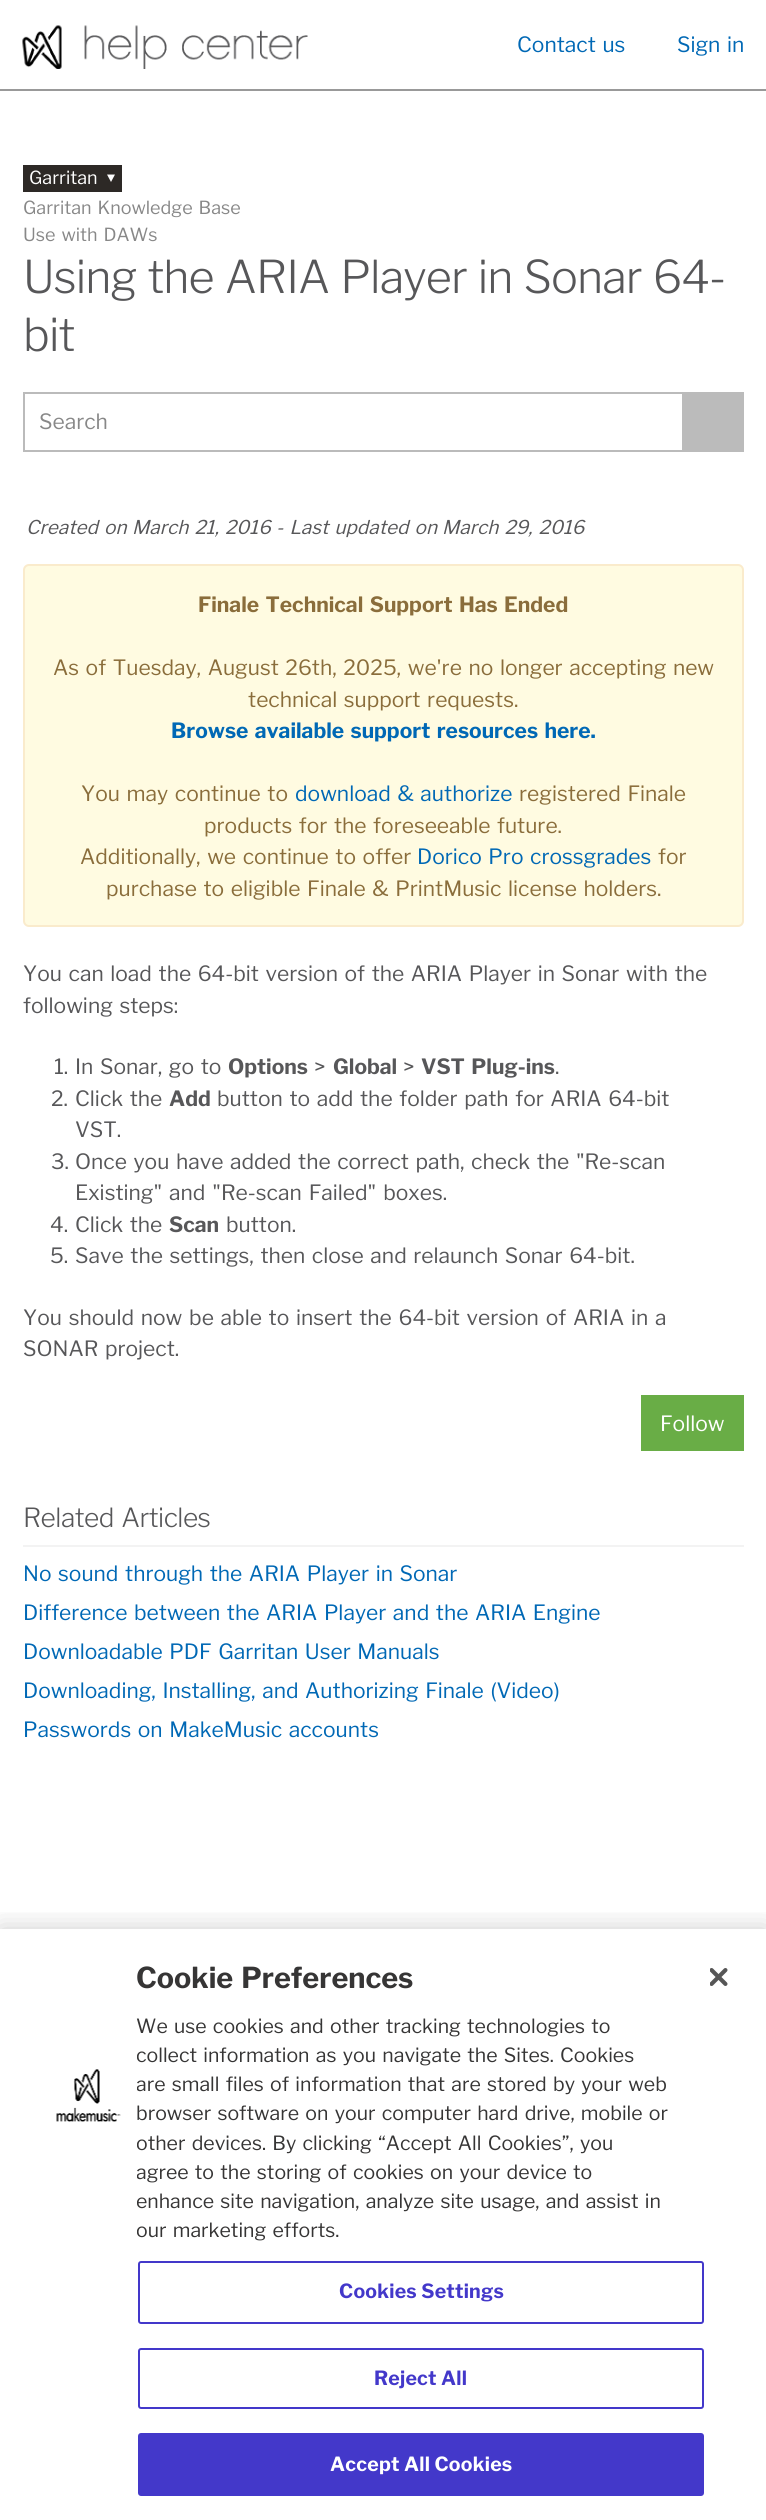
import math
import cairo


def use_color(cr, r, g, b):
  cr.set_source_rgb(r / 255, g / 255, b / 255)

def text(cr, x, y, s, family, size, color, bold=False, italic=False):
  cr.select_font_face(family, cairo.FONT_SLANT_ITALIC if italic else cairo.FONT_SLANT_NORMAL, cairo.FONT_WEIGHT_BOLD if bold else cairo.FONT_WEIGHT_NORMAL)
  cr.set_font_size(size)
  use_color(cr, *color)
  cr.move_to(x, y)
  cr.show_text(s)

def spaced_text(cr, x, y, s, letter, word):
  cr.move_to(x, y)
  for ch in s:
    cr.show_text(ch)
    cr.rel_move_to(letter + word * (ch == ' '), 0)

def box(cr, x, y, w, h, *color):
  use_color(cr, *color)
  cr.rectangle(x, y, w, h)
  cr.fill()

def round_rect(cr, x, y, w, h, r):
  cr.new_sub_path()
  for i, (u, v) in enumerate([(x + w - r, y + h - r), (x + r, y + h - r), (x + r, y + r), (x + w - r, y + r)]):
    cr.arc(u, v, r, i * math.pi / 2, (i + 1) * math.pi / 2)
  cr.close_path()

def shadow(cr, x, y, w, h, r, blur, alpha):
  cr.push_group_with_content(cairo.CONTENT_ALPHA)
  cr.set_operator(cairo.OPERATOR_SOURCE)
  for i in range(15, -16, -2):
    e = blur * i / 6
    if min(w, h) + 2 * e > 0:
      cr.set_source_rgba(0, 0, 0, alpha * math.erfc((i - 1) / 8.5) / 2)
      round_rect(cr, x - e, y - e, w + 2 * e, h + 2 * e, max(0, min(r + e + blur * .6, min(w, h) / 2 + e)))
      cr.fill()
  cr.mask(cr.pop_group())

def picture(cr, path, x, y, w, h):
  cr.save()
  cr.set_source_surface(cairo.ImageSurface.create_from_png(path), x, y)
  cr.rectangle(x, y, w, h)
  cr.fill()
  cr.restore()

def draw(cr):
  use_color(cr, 255, 255, 255)
  cr.paint()
  box(cr, 0, 89, 766, 2, 153, 153, 153)
  picture(cr, "img_01.png", 22, 25, 286, 44)
  box(cr, 23, 165, 99, 27, 45, 41, 38)
  use_color(cr, 255, 255, 255)
  cr.new_path()
  cr.move_to(115, 174.5)
  cr.line_to(111, 182)
  cr.line_to(107, 174.5)
  cr.close_path()
  cr.fill()
  cr.rectangle(24, 393, 659, 58)
  use_color(cr, 187, 187, 187)
  cr.stroke()
  box(cr, 684, 392, 60, 60, 187, 187, 187)
  use_color(cr, 255, 251, 225)
  round_rect(cr, 24, 565, 719, 361, 5)
  cr.fill_preserve()
  use_color(cr, 250, 235, 204)
  cr.stroke()
  box(cr, 641, 1395, 103, 56, 105, 173, 70)
  box(cr, 23, 1545, 721, 2, 243, 243, 243)
  cr.save()
  cr.rectangle(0, 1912, 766, 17)
  cr.clip()
  use_color(cr, 0, 0, 0)
  shadow(cr, 0, 1929, 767, 591, 0, 13.5, 0.2)
  cr.restore()
  picture(cr, "img_02.png", 56, 2069, 65, 53)
  round_rect(cr, 139, 2262, 564, 61, 2)
  use_color(cr, 67, 56, 202)
  cr.stroke()
  round_rect(cr, 139, 2349, 564, 59, 2)
  cr.stroke()
  round_rect(cr, 139, 2434, 564, 61, 2)
  cr.fill_preserve()
  cr.stroke()
  picture(cr, "img_03.png", 710, 1968, 18, 18)
  cr.select_font_face("Libre Franklin")
  cr.set_font_size(21)
  use_color(cr, 0, 104, 181)
  spaced_text(cr, 517, 52, "Contact us", 0, 2.1)
  spaced_text(cr, 677, 52, "Sign in", 0, 2.1)
  text(cr, 29, 184, "Garritan", "Libre Franklin", 18, (255, 255, 255))
  use_color(cr, 136, 136, 136)
  spaced_text(cr, 23, 214, "Garritan Knowledge Base", 0, 2.1)
  spaced_text(cr, 23, 241, "Use with DAWs", 0, 2.1)
  cr.select_font_face("Libre Franklin Light")
  cr.set_font_size(45)
  use_color(cr, 87, 87, 89)
  spaced_text(cr, 23, 293, "Using the ARIA Player in Sonar 64-", -0.9, 2.1)
  spaced_text(cr, 23, 351, "bit", -0.9, 0)
  text(cr, 39, 429, "Search", "Libre Franklin", 21, (136, 136, 136))
  cr.select_font_face("Libre Franklin", cairo.FONT_SLANT_ITALIC)
  cr.set_font_size(19)
  use_color(cr, 87, 87, 89)
  spaced_text(cr, 26, 534, "Created on", 0, 2.1)
  spaced_text(cr, 132, 534, "March 21, 2016", 0, 2.1)
  spaced_text(cr, 276, 534, "- Last updated on", 0, 2.1)
  spaced_text(cr, 442, 534, "March 29, 2016", 0, 2.1)
  cr.select_font_face("Libre Franklin", cairo.FONT_SLANT_NORMAL, cairo.FONT_WEIGHT_BOLD)
  cr.set_font_size(21)
  use_color(cr, 138, 109, 59)
  spaced_text(cr, 198, 612, "Finale Technical Support Has Ended", 0, 2.1)
  cr.select_font_face("Libre Franklin")
  spaced_text(cr, 53, 675, "As of Tuesday, August 26th, 2025, we're no longer accepting new", 0, 2.1)
  spaced_text(cr, 248, 707, "technical support requests.", 0, 2.1)
  cr.select_font_face("Libre Franklin", cairo.FONT_SLANT_NORMAL, cairo.FONT_WEIGHT_BOLD)
  use_color(cr, 0, 104, 181)
  spaced_text(cr, 171, 738, "Browse available support resources here.", 0, 2.1)
  cr.select_font_face("Libre Franklin")
  use_color(cr, 138, 109, 59)
  spaced_text(cr, 81, 801, "You may continue to", 0, 2.1)
  use_color(cr, 0, 104, 181)
  spaced_text(cr, 295, 801, "download & authorize", 0, 2.1)
  use_color(cr, 138, 109, 59)
  spaced_text(cr, 519, 801, "registered Finale", 0, 2.1)
  spaced_text(cr, 204, 833, "products for the foreseeable future.", 0, 2.1)
  spaced_text(cr, 80, 864, "Additionally, we continue to offer", 0, 2.1)
  use_color(cr, 0, 104, 181)
  spaced_text(cr, 417, 864, "Dorico Pro crossgrades", 0, 2.1)
  text(cr, 658, 864, "for", "Libre Franklin", 21, (138, 109, 59))
  spaced_text(cr, 106, 896, "purchase to eligible Finale & PrintMusic license holders.", 0, 2.1)
  use_color(cr, 87, 87, 89)
  spaced_text(cr, 23, 981, "You can load the 64-bit version of the ARIA Player in Sonar with the", 0, 2.1)
  spaced_text(cr, 23, 1013, "following steps:", 0, 2.1)
  text(cr, 54, 1074, "1.", "Libre Franklin", 21, (87, 87, 89))
  spaced_text(cr, 75, 1074, "In Sonar, go to", 0, 2.1)
  text(cr, 228, 1074, "Options", "Libre Franklin", 21, (87, 87, 89), bold=True)
  text(cr, 314, 1074, ">", "Libre Franklin", 21, (87, 87, 89))
  text(cr, 333, 1074, "Global", "Libre Franklin", 21, (87, 87, 89), bold=True)
  text(cr, 403, 1074, ">", "Libre Franklin", 21, (87, 87, 89))
  cr.select_font_face("Libre Franklin", cairo.FONT_SLANT_NORMAL, cairo.FONT_WEIGHT_BOLD)
  spaced_text(cr, 421, 1074, "VST Plug-ins", 0, 2.1)
  text(cr, 555, 1074, ".", "Libre Franklin", 21, (87, 87, 89))
  text(cr, 51, 1106, "2.", "Libre Franklin", 21, (87, 87, 89))
  spaced_text(cr, 75, 1106, "Click the", 0, 2.1)
  text(cr, 169, 1106, "Add", "Libre Franklin", 21, (87, 87, 89), bold=True)
  cr.select_font_face("Libre Franklin")
  spaced_text(cr, 217, 1106, "button to add the folder path for ARIA 64-bit", 0, 2.1)
  text(cr, 75, 1137, "VST.", "Libre Franklin", 21, (87, 87, 89))
  text(cr, 51, 1169, "3.", "Libre Franklin", 21, (87, 87, 89))
  spaced_text(cr, 75, 1169, "Once you have added the correct path, check the \"Re-scan", 0, 2.1)
  spaced_text(cr, 75, 1200, "Existing\" and \"Re-scan Failed\" boxes.", 0, 2.5)
  text(cr, 50, 1232, "4.", "Libre Franklin", 21, (87, 87, 89))
  spaced_text(cr, 75, 1232, "Click the", 0, 2.1)
  text(cr, 169, 1232, "Scan", "Libre Franklin", 21, (87, 87, 89), bold=True)
  text(cr, 226, 1232, "button.", "Libre Franklin", 21, (87, 87, 89))
  text(cr, 50, 1263, "5.", "Libre Franklin", 21, (87, 87, 89))
  spaced_text(cr, 75, 1263, "Save the settings, then close and relaunch Sonar 64-bit.", 0, 2.1)
  spaced_text(cr, 23, 1325, "You should now be able to insert the 64-bit version of ARIA in a", 0, 2.25)
  spaced_text(cr, 23, 1356, "SONAR project.", 0, 2.1)
  text(cr, 660, 1431, "Follow", "Libre Franklin", 21, (255, 255, 255))
  cr.select_font_face("Libre Franklin Light")
  cr.set_font_size(26.25)
  use_color(cr, 87, 87, 89)
  spaced_text(cr, 23, 1527, "Related Articles", -0.5, 2.1)
  cr.select_font_face("Libre Franklin")
  cr.set_font_size(21)
  use_color(cr, 0, 104, 181)
  spaced_text(cr, 23, 1581, "No sound through the ARIA Player in Sonar", 0, 2.1)
  spaced_text(cr, 23, 1620, "Difference between the ARIA Player and the ARIA Engine", 0, 2.1)
  spaced_text(cr, 23, 1659, "Downloadable PDF Garritan User Manuals", 0, 2.1)
  spaced_text(cr, 23, 1698, "Downloading, Installing, and Authorizing Finale (Video)", 0, 2.1)
  spaced_text(cr, 23, 1737, "Passwords on MakeMusic accounts", 0, 2.1)
  cr.select_font_face("Libre Franklin", cairo.FONT_SLANT_NORMAL, cairo.FONT_WEIGHT_BOLD)
  cr.set_font_size(28.75)
  use_color(cr, 54, 53, 53)
  spaced_text(cr, 136, 1988, "Cookie Preferences", 0, 2.1)
  cr.select_font_face("Libre Franklin")
  cr.set_font_size(19.5)
  spaced_text(cr, 136, 2033, "We use cookies and other tracking technologies to", 0, 2.1)
  cr.save()
  cr.rectangle(137, 1959, 532, 287)
  cr.clip()
  spaced_text(cr, 136, 2062, "collect information as you navigate the Sites.", 0, 2.1)
  cr.restore()
  text(cr, 560, 2062, "Cookies", "Libre Franklin", 19.5, (54, 53, 53))
  cr.save()
  cr.rectangle(137, 1959, 532, 287)
  cr.clip()
  spaced_text(cr, 136, 2091, "are small files of information that are stored by your web", 0, 2.1)
  cr.restore()
  spaced_text(cr, 136, 2120, "browser software on your computer hard drive, mobile or", 0, 2.1)
  cr.save()
  cr.rectangle(137, 1959, 532, 287)
  cr.clip()
  spaced_text(cr, 136, 2150, "other devices. By clicking “Accept All Cookies”, you", 0, 2.1)
  spaced_text(cr, 136, 2179, "agree to the storing of cookies on your device to", 0, 2.1)
  spaced_text(cr, 136, 2208, "enhance site navigation, analyze site usage, and assist in", 0, 2.1)
  spaced_text(cr, 136, 2237, "our marketing efforts.", 0, 2.1)
  cr.restore()
  cr.select_font_face("Libre Franklin", cairo.FONT_SLANT_NORMAL, cairo.FONT_WEIGHT_BOLD)
  use_color(cr, 67, 56, 202)
  spaced_text(cr, 339, 2298, "Cookies Settings", 0.25, 0)
  spaced_text(cr, 374, 2385, "Reject All", 0.25, 0)
  use_color(cr, 255, 255, 255)
  spaced_text(cr, 330, 2471, "Accept All Cookies", 0.25, 0)


surface = cairo.ImageSurface(cairo.FORMAT_RGB24, 766, 2520)
cr = cairo.Context(surface)
options = cairo.FontOptions()
options.set_hint_metrics(cairo.HINT_METRICS_OFF)
options.set_hint_style(cairo.HINT_STYLE_NONE)
cr.set_font_options(options)
cr.set_miter_limit(4)
draw(cr)
surface.write_to_png("out.png")
